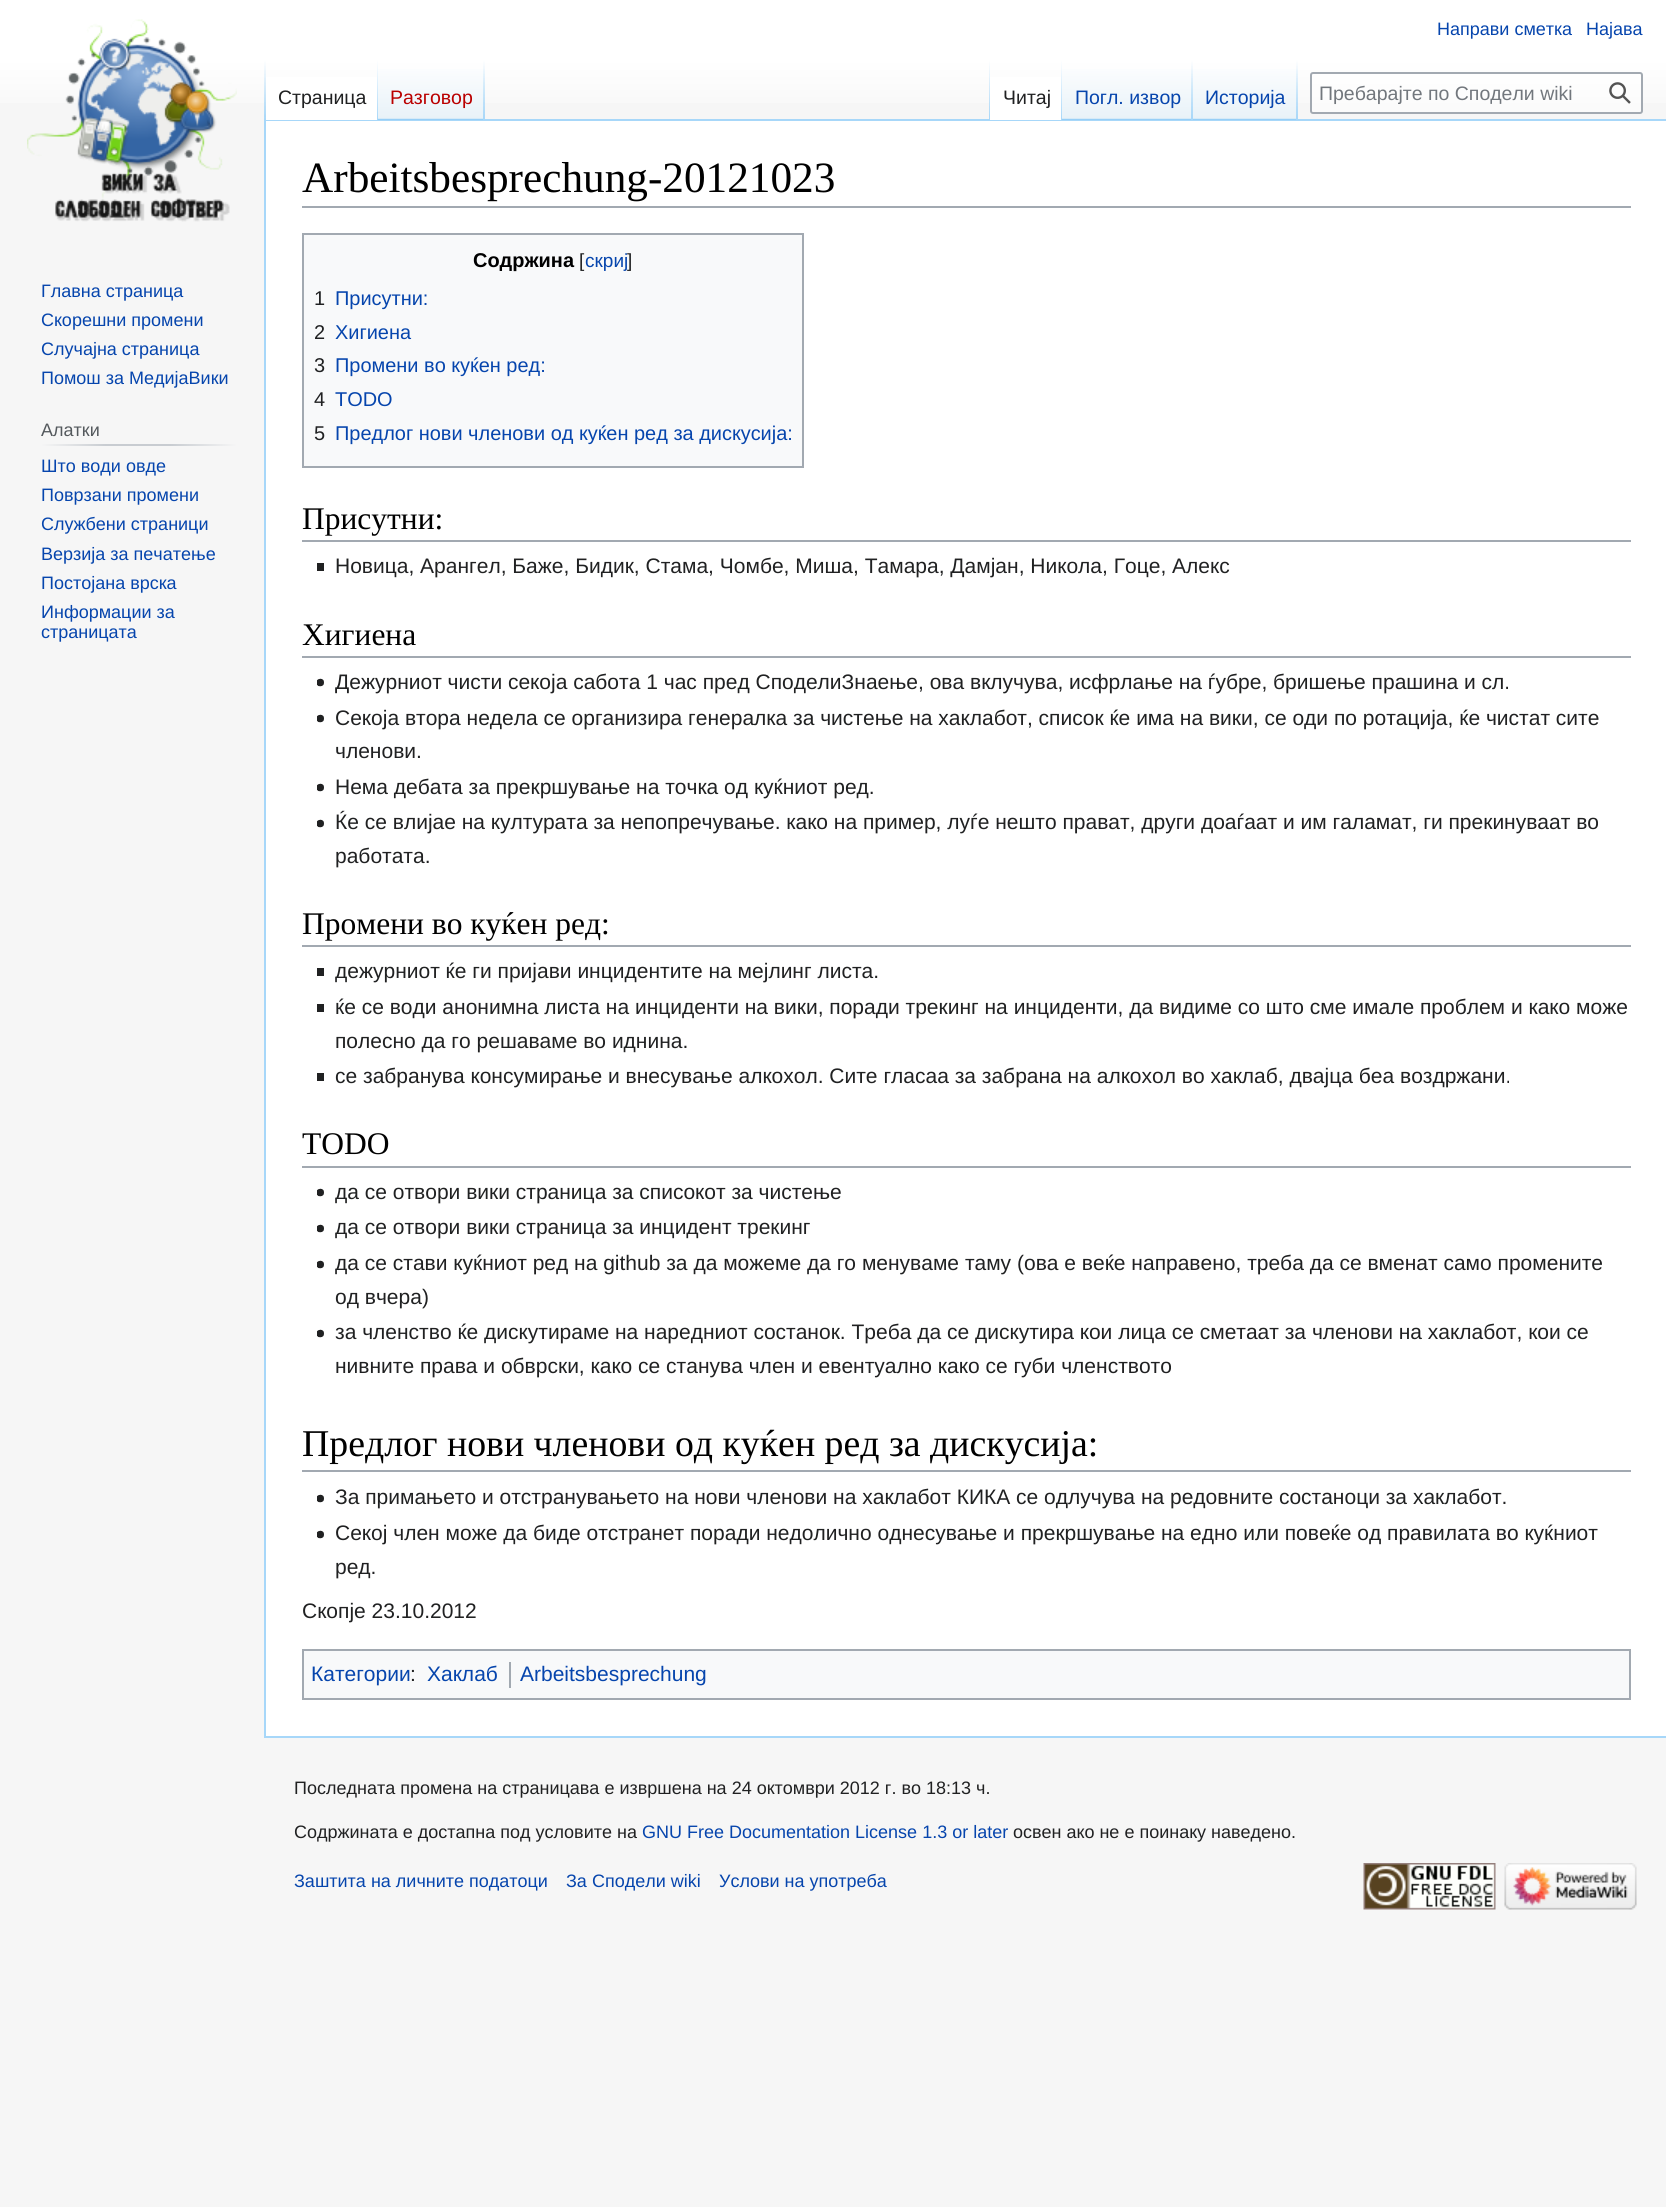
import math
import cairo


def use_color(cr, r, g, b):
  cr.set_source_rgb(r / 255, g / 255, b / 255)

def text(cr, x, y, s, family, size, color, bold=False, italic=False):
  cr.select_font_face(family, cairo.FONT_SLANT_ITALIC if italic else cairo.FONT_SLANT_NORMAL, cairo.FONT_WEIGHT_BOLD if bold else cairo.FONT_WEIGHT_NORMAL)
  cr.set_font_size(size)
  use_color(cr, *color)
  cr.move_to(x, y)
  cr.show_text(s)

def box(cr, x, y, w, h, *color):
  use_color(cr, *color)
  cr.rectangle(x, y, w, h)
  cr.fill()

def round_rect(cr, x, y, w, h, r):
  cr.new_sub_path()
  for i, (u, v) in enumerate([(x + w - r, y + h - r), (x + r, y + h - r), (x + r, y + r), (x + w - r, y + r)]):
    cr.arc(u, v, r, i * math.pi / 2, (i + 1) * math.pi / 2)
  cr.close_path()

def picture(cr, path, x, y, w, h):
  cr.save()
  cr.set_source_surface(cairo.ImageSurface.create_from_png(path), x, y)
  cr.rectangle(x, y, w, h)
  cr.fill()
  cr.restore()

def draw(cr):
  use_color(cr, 246, 246, 246)
  cr.paint()
  gradient = cairo.LinearGradient(833, 0, 833, 120)
  gradient.add_color_stop_rgba(0.5, 1, 1, 1, 1)
  gradient.add_color_stop_rgba(1, 0.965, 0.965, 0.965, 1)
  cr.set_source(gradient)
  cr.rectangle(0, 0, 1666, 103)
  cr.fill()
  box(cr, 264, 119, 1402, 2, 167, 215, 249)
  box(cr, 264, 1736, 1402, 2, 167, 215, 249)
  box(cr, 264, 119, 2, 1618, 167, 215, 249)
  gradient = cairo.LinearGradient(265, 60, 265, 120)
  gradient.add_color_stop_rgba(0, 0.655, 0.843, 0.976, 0)
  gradient.add_color_stop_rgba(1, 0.655, 0.843, 0.976, 1)
  cr.set_source(gradient)
  cr.rectangle(264, 60, 2, 60)
  cr.fill()
  box(cr, 266, 77, 111, 43, 255, 255, 255)
  gradient = cairo.LinearGradient(377, 60, 377, 120)
  gradient.add_color_stop_rgba(0, 1, 1, 1, 1)
  gradient.add_color_stop_rgba(1, 0.655, 0.843, 0.976, 1)
  cr.set_source(gradient)
  cr.rectangle(377, 60, 1, 60)
  cr.fill()
  gradient = cairo.LinearGradient(431, 120, 431, 60)
  gradient.add_color_stop_rgba(0, 0.467, 0.757, 0.965, 1)
  gradient.add_color_stop_rgba(0.03, 0.91, 0.949, 0.973, 1)
  gradient.add_color_stop_rgba(1, 1, 1, 1, 1)
  cr.set_source(gradient)
  cr.rectangle(378, 69, 107, 51)
  cr.fill()
  gradient = cairo.LinearGradient(484, 60, 484, 120)
  gradient.add_color_stop_rgba(0, 0.655, 0.843, 0.976, 0)
  gradient.add_color_stop_rgba(1, 0.655, 0.843, 0.976, 1)
  cr.set_source(gradient)
  cr.rectangle(483, 60, 2, 60)
  cr.fill()
  gradient = cairo.LinearGradient(989, 60, 989, 120)
  gradient.add_color_stop_rgba(0, 0.655, 0.843, 0.976, 0)
  gradient.add_color_stop_rgba(1, 0.655, 0.843, 0.976, 1)
  cr.set_source(gradient)
  cr.rectangle(989, 60, 1, 60)
  cr.fill()
  box(cr, 990, 77, 71, 43, 255, 255, 255)
  gradient = cairo.LinearGradient(1061, 60, 1061, 120)
  gradient.add_color_stop_rgba(0, 1, 1, 1, 1)
  gradient.add_color_stop_rgba(1, 0.655, 0.843, 0.976, 1)
  cr.set_source(gradient)
  cr.rectangle(1061, 60, 1, 60)
  cr.fill()
  gradient = cairo.LinearGradient(1127, 120, 1127, 60)
  gradient.add_color_stop_rgba(0, 0.467, 0.757, 0.965, 1)
  gradient.add_color_stop_rgba(0.03, 0.91, 0.949, 0.973, 1)
  gradient.add_color_stop_rgba(1, 1, 1, 1, 1)
  cr.set_source(gradient)
  cr.rectangle(1062, 69, 131, 51)
  cr.fill()
  gradient = cairo.LinearGradient(1192, 60, 1192, 120)
  gradient.add_color_stop_rgba(0, 0.655, 0.843, 0.976, 0)
  gradient.add_color_stop_rgba(1, 0.655, 0.843, 0.976, 1)
  cr.set_source(gradient)
  cr.rectangle(1191, 60, 2, 60)
  cr.fill()
  gradient = cairo.LinearGradient(1245, 120, 1245, 60)
  gradient.add_color_stop_rgba(0, 0.467, 0.757, 0.965, 1)
  gradient.add_color_stop_rgba(0.03, 0.91, 0.949, 0.973, 1)
  gradient.add_color_stop_rgba(1, 1, 1, 1, 1)
  cr.set_source(gradient)
  cr.rectangle(1193, 69, 105, 51)
  cr.fill()
  gradient = cairo.LinearGradient(1297, 60, 1297, 120)
  gradient.add_color_stop_rgba(0, 0.655, 0.843, 0.976, 0)
  gradient.add_color_stop_rgba(1, 0.655, 0.843, 0.976, 1)
  cr.set_source(gradient)
  cr.rectangle(1296, 60, 2, 60)
  cr.fill()
  cr.set_source_rgba(1, 1, 1, 0.5)
  round_rect(cr, 1311, 73, 331, 40, 2)
  cr.fill_preserve()
  use_color(cr, 162, 169, 177)
  cr.stroke()
  picture(cr, "img_01.png", 1609, 82, 22, 22)
  picture(cr, "img_02.png", 27, 19, 210, 203)
  gradient = cairo.LinearGradient(41, 445, 237, 445)
  gradient.add_color_stop_rgba(0, 0.965, 0.965, 0.965, 1)
  gradient.add_color_stop_rgba(0.33, 0.784, 0.8, 0.82, 1)
  gradient.add_color_stop_rgba(0.66, 0.784, 0.8, 0.82, 1)
  gradient.add_color_stop_rgba(1, 0.965, 0.965, 0.965, 1)
  cr.set_source(gradient)
  cr.rectangle(41, 444, 196, 2)
  cr.fill()
  box(cr, 266, 121, 1400, 1615, 255, 255, 255)
  box(cr, 302, 206, 1329, 2, 162, 169, 177)
  use_color(cr, 248, 249, 250)
  cr.rectangle(303, 234, 500, 233)
  cr.fill_preserve()
  use_color(cr, 162, 169, 177)
  cr.stroke()
  box(cr, 302, 540, 1329, 2, 162, 169, 177)
  box(cr, 317, 563, 7, 8, 32, 33, 34)
  box(cr, 302, 656, 1329, 2, 162, 169, 177)
  picture(cr, "img_03.png", 317, 678, 7, 9)
  picture(cr, "img_03.png", 317, 714, 7, 9)
  picture(cr, "img_03.png", 317, 783, 7, 9)
  picture(cr, "img_03.png", 317, 819, 7, 9)
  box(cr, 302, 945, 1329, 2, 162, 169, 177)
  box(cr, 317, 968, 7, 8, 32, 33, 34)
  box(cr, 317, 1004, 7, 8, 32, 33, 34)
  box(cr, 317, 1073, 7, 8, 32, 33, 34)
  box(cr, 302, 1166, 1329, 2, 162, 169, 177)
  picture(cr, "img_03.png", 317, 1188, 7, 9)
  picture(cr, "img_03.png", 317, 1224, 7, 9)
  picture(cr, "img_03.png", 317, 1260, 7, 9)
  picture(cr, "img_03.png", 317, 1329, 7, 9)
  box(cr, 302, 1470, 1329, 2, 162, 169, 177)
  picture(cr, "img_03.png", 317, 1494, 7, 9)
  picture(cr, "img_03.png", 317, 1530, 7, 9)
  use_color(cr, 248, 249, 250)
  cr.rectangle(303, 1650, 1327, 49)
  cr.fill_preserve()
  use_color(cr, 162, 169, 177)
  cr.stroke()
  box(cr, 509, 1662, 2, 26, 162, 169, 177)
  picture(cr, "img_04.png", 1363, 1863, 133, 47)
  picture(cr, "img_05.png", 1504, 1863, 133, 47)
  text(cr, 1437, 35, "Направи сметка", "Liberation Sans", 18, (6, 69, 173))
  text(cr, 1586, 35, "Најава", "Liberation Sans", 18, (6, 69, 173))
  text(cr, 278, 104, "Страница", "Liberation Sans", 19.5, (32, 33, 34))
  text(cr, 390, 104, "Разговор", "Liberation Sans", 19.5, (186, 0, 0))
  text(cr, 1003, 104, "Читај", "Liberation Sans", 19.5, (32, 33, 34))
  text(cr, 1075, 104, "Погл. извор", "Liberation Sans", 19.5, (6, 69, 173))
  text(cr, 1205, 104, "Историја", "Liberation Sans", 19.5, (6, 69, 173))
  text(cr, 1319, 100, "Пребарајте по Сподели wiki", "Liberation Sans", 19.5, (114, 119, 125))
  text(cr, 41, 297, "Главна страница", "Liberation Sans", 18, (6, 69, 173))
  text(cr, 41, 326, "Скорешни промени", "Liberation Sans", 18, (6, 69, 173))
  text(cr, 41, 355, "Случајна страница", "Liberation Sans", 18, (6, 69, 173))
  text(cr, 41, 384, "Помош за МедијаВики", "Liberation Sans", 18, (6, 69, 173))
  text(cr, 41, 436, "Алатки", "Liberation Sans", 18, (84, 89, 93))
  text(cr, 41, 472, "Што води овде", "Liberation Sans", 18, (6, 69, 173))
  text(cr, 41, 501, "Поврзани промени", "Liberation Sans", 18, (6, 69, 173))
  text(cr, 41, 530, "Службени страници", "Liberation Sans", 18, (6, 69, 173))
  text(cr, 41, 560, "Верзија за печатење", "Liberation Sans", 18, (6, 69, 173))
  text(cr, 41, 589, "Постојана врска", "Liberation Sans", 18, (6, 69, 173))
  text(cr, 41, 618, "Информации за", "Liberation Sans", 18, (6, 69, 173))
  text(cr, 41, 638, "страницата", "Liberation Sans", 18, (6, 69, 173))
  text(cr, 302, 192, "Arbeitsbesprechung-20121023", "Liberation Serif", 43.25, (0, 0, 0))
  text(cr, 473, 267, "Содржина", "Liberation Sans", 19.95, (0, 0, 0), bold=True)
  text(cr, 579, 267, "[", "Liberation Sans", 19, (32, 33, 34))
  text(cr, 585, 267, "скриј", "Liberation Sans", 19, (6, 69, 173))
  text(cr, 627, 267, "]", "Liberation Sans", 19, (32, 33, 34))
  text(cr, 314, 305, "1", "Liberation Sans", 19.95, (32, 33, 34))
  text(cr, 335, 305, "Присутни:", "Liberation Sans", 19.95, (6, 69, 173))
  text(cr, 314, 339, "2", "Liberation Sans", 19.95, (32, 33, 34))
  text(cr, 335, 339, "Хигиена", "Liberation Sans", 19.95, (6, 69, 173))
  text(cr, 314, 372, "3", "Liberation Sans", 19.95, (32, 33, 34))
  text(cr, 335, 372, "Промени во куќен ред:", "Liberation Sans", 19.95, (6, 69, 173))
  text(cr, 314, 406, "4", "Liberation Sans", 19.95, (32, 33, 34))
  text(cr, 335, 406, "TODO", "Liberation Sans", 19.95, (6, 69, 173))
  text(cr, 314, 440, "5", "Liberation Sans", 19.95, (32, 33, 34))
  text(cr, 335, 440, "Предлог нови членови од куќен ред за дискусија:", "Liberation Sans", 19.95, (6, 69, 173))
  text(cr, 302, 529, "Присутни:", "Liberation Serif", 31.5, (0, 0, 0))
  text(cr, 335, 573, "Новица, Арангел, Баже, Бидик, Стама, Чомбе, Миша, Тамара, Дамјан, Никола, Гоце, Алекс", "Liberation Sans", 21, (32, 33, 34))
  text(cr, 302, 645, "Хигиена", "Liberation Serif", 31.5, (0, 0, 0))
  text(cr, 335, 689, "Дежурниот чисти секоја сабота 1 час пред СподелиЗнаење, ова вклучува, исфрлање на ѓубре, бришење прашина и сл.", "Liberation Sans", 21, (32, 33, 34))
  text(cr, 335, 725, "Секоја втора недела се организира генералка за чистење на хаклабот, список ќе има на вики, се оди по ротација, ќе чистат сите", "Liberation Sans", 21, (32, 33, 34))
  text(cr, 335, 758, "членови.", "Liberation Sans", 21, (32, 33, 34))
  text(cr, 335, 794, "Нема дебата за прекршување на точка од куќниот ред.", "Liberation Sans", 21, (32, 33, 34))
  text(cr, 335, 829, "Ќе се влијае на културата за непопречување. како на пример, луѓе нешто прават, други доаѓаат и им галамат, ги прекинуваат во", "Liberation Sans", 21, (32, 33, 34))
  text(cr, 335, 863, "работата.", "Liberation Sans", 21, (32, 33, 34))
  text(cr, 302, 934, "Промени во куќен ред:", "Liberation Serif", 31.5, (0, 0, 0))
  text(cr, 335, 978, "дежурниот ќе ги пријави инцидентите на мејлинг листа.", "Liberation Sans", 21, (32, 33, 34))
  text(cr, 335, 1014, "ќе се води анонимна листа на инциденти на вики, поради трекинг на инциденти, да видиме со што сме имале проблем и како може", "Liberation Sans", 21, (32, 33, 34))
  text(cr, 335, 1048, "полесно да го решаваме во иднина.", "Liberation Sans", 21, (32, 33, 34))
  text(cr, 335, 1083, "се забранува консумирање и внесување алкохол. Сите гласаа за забрана на алкохол во хаклаб, двајца беа воздржани.", "Liberation Sans", 21, (32, 33, 34))
  text(cr, 302, 1154, "TODO", "Liberation Serif", 31.5, (0, 0, 0))
  text(cr, 335, 1199, "да се отвори вики страница за списокот за чистење", "Liberation Sans", 21, (32, 33, 34))
  text(cr, 335, 1234, "да се отвори вики страница за инцидент трекинг", "Liberation Sans", 21, (32, 33, 34))
  text(cr, 335, 1270, "да се стави куќниот ред на github за да можеме да го менуваме таму (ова е веќе направено, треба да се вменат само промените", "Liberation Sans", 21, (32, 33, 34))
  text(cr, 335, 1304, "од вчера)", "Liberation Sans", 21, (32, 33, 34))
  text(cr, 335, 1339, "за членство ќе дискутираме на наредниот состанок. Треба да се дискутира кои лица се сметаат за членови на хаклабот, кои се", "Liberation Sans", 21, (32, 33, 34))
  text(cr, 335, 1373, "нивните права и обврски, како се станува член и евентуално како се губи членството", "Liberation Sans", 21, (32, 33, 34))
  text(cr, 302, 1456, "Предлог нови членови од куќен ред за дискусија:", "Liberation Serif", 37.8, (0, 0, 0))
  text(cr, 335, 1504, "За примањето и отстранувањето на нови членови на хаклабот КИКА се одлучува на редовните состаноци за хаклабот.", "Liberation Sans", 21, (32, 33, 34))
  text(cr, 335, 1540, "Секој член може да биде отстранет поради недолично однесување и прекршување на едно или повеќе од правилата во куќниот", "Liberation Sans", 21, (32, 33, 34))
  text(cr, 335, 1574, "ред.", "Liberation Sans", 21, (32, 33, 34))
  text(cr, 302, 1618, "Скопје 23.10.2012", "Liberation Sans", 21, (32, 33, 34))
  text(cr, 311, 1681, "Категории", "Liberation Sans", 21, (6, 69, 173))
  text(cr, 410, 1681, ":", "Liberation Sans", 21, (32, 33, 34))
  text(cr, 427, 1681, "Хаклаб", "Liberation Sans", 21, (6, 69, 173))
  text(cr, 520, 1681, "Arbeitsbesprechung", "Liberation Sans", 21, (6, 69, 173))
  text(cr, 294, 1794, "Последната промена на страницава е извршена на 24 октомври 2012 г. во 18:13 ч.", "Liberation Sans", 18, (32, 33, 34))
  text(cr, 294, 1838, "Содржината е достапна под условите на", "Liberation Sans", 18, (32, 33, 34))
  text(cr, 642, 1838, "GNU Free Documentation License 1.3 or later", "Liberation Sans", 18, (6, 69, 173))
  text(cr, 1013, 1838, "освен ако не е поинаку наведено.", "Liberation Sans", 18, (32, 33, 34))
  text(cr, 294, 1887, "Заштита на личните податоци", "Liberation Sans", 18, (6, 69, 173))
  text(cr, 566, 1887, "За Сподели wiki", "Liberation Sans", 18, (6, 69, 173))
  text(cr, 719, 1887, "Услови на употреба", "Liberation Sans", 18, (6, 69, 173))


surface = cairo.ImageSurface(cairo.FORMAT_RGB24, 1666, 2207)
cr = cairo.Context(surface)
options = cairo.FontOptions()
options.set_hint_metrics(cairo.HINT_METRICS_OFF)
options.set_hint_style(cairo.HINT_STYLE_NONE)
cr.set_font_options(options)
cr.set_miter_limit(4)
draw(cr)
surface.write_to_png("out.png")
